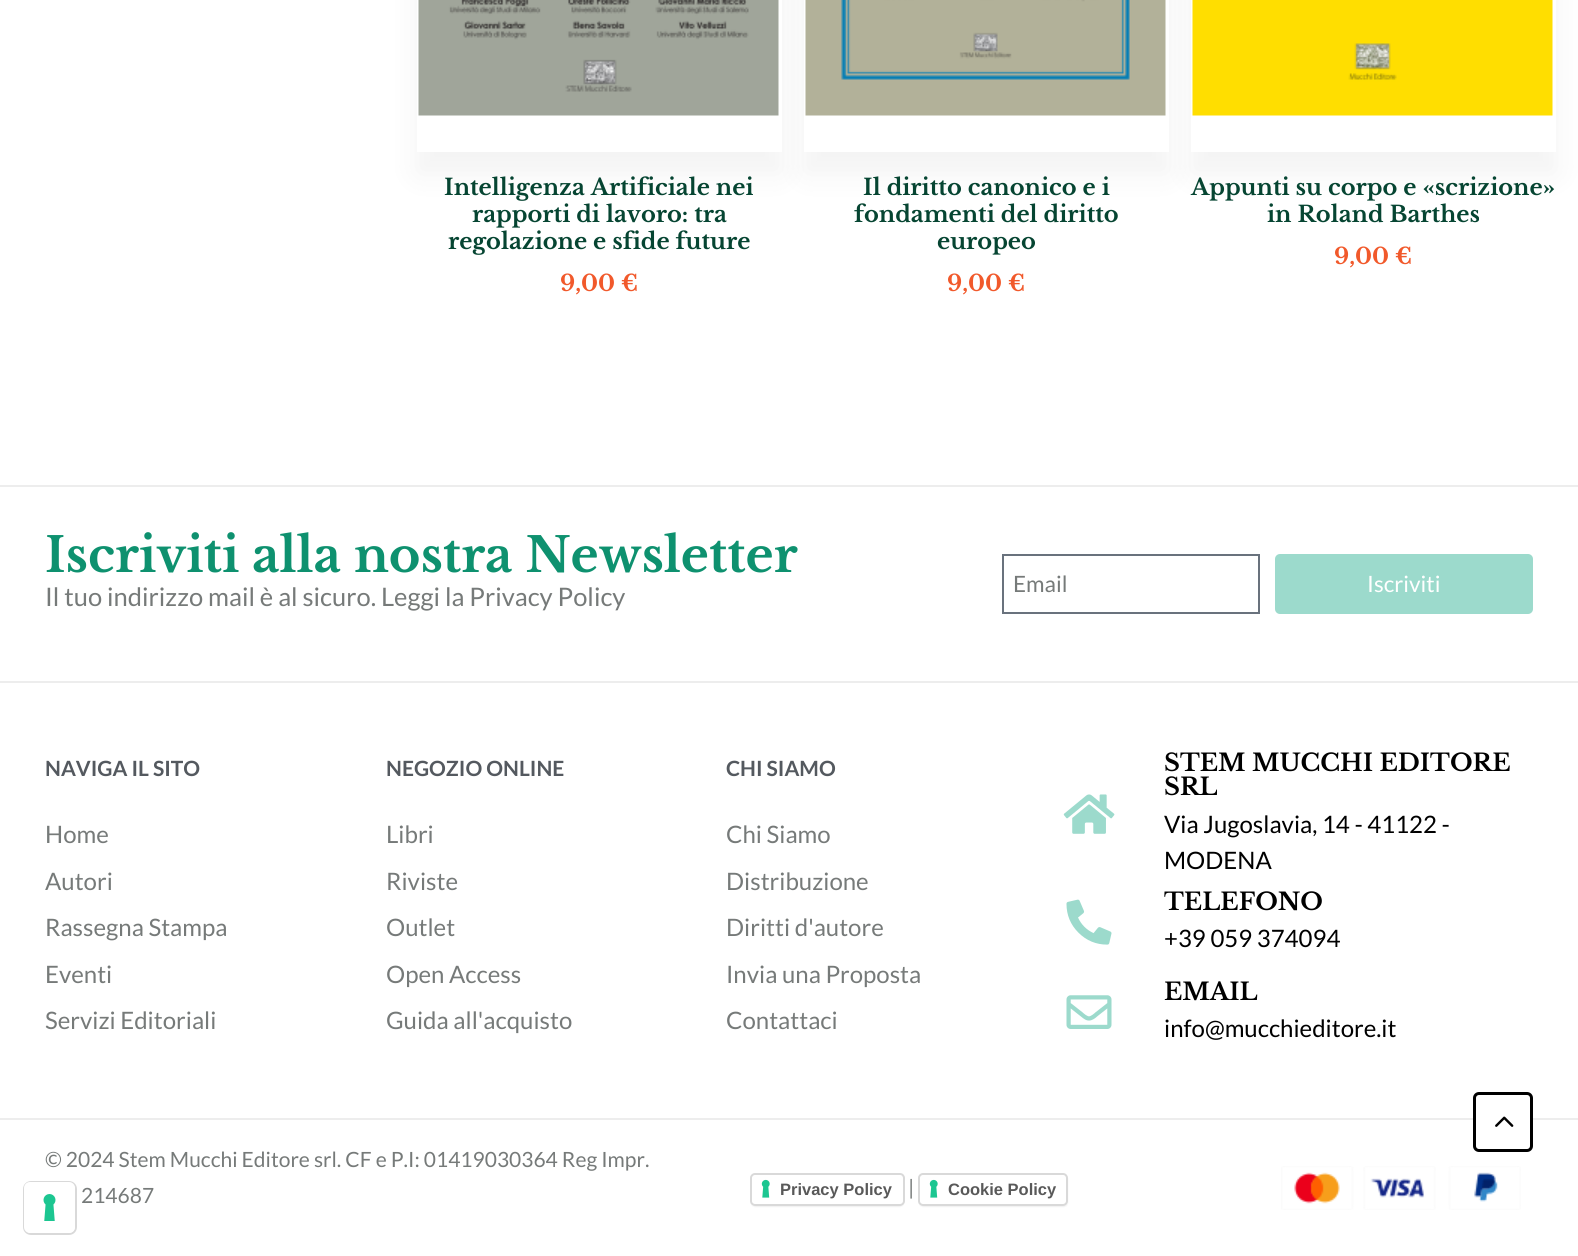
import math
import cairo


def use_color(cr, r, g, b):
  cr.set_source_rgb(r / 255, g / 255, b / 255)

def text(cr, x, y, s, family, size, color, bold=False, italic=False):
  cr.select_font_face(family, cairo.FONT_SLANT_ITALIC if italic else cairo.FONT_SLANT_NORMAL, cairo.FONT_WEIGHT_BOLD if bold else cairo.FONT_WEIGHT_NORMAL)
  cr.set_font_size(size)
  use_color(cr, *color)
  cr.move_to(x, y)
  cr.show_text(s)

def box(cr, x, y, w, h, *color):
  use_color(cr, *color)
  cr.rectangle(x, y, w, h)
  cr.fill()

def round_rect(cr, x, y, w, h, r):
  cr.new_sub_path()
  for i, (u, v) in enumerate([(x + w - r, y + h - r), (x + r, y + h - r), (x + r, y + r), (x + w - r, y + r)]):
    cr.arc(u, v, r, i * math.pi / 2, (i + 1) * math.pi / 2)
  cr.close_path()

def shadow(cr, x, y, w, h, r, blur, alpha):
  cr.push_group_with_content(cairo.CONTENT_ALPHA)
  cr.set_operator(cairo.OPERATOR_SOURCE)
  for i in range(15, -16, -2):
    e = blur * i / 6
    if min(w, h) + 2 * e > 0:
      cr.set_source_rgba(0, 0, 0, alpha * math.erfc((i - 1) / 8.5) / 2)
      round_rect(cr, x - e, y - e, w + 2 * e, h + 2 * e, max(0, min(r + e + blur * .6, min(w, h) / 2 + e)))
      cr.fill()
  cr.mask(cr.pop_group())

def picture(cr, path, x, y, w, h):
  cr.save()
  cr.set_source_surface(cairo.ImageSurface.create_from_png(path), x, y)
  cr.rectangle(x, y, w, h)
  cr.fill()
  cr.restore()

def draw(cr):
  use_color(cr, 255, 255, 255)
  cr.paint()
  cr.save()
  cr.set_fill_rule(cairo.FILL_RULE_EVEN_ODD)
  cr.new_path()
  cr.move_to(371, 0)
  cr.line_to(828, 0)
  cr.line_to(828, 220)
  cr.line_to(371, 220)
  cr.close_path()
  cr.move_to(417, -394)
  cr.line_to(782, -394)
  cr.line_to(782, 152)
  cr.line_to(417, 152)
  cr.close_path()
  cr.clip()
  use_color(cr, 0, 0, 0)
  shadow(cr, 417, -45, 365, 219, 0, 15, 0.05)
  cr.restore()
  picture(cr, "img_01.png", 418, 0, 361, 116)
  cr.save()
  cr.set_fill_rule(cairo.FILL_RULE_EVEN_ODD)
  cr.new_path()
  cr.move_to(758, 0)
  cr.line_to(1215, 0)
  cr.line_to(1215, 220)
  cr.line_to(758, 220)
  cr.close_path()
  cr.move_to(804, -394)
  cr.line_to(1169, -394)
  cr.line_to(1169, 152)
  cr.line_to(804, 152)
  cr.close_path()
  cr.clip()
  use_color(cr, 0, 0, 0)
  shadow(cr, 804, -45, 365, 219, 0, 15, 0.05)
  cr.restore()
  picture(cr, "img_02.png", 805, 0, 361, 116)
  cr.save()
  cr.set_fill_rule(cairo.FILL_RULE_EVEN_ODD)
  cr.new_path()
  cr.move_to(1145, 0)
  cr.line_to(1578, 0)
  cr.line_to(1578, 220)
  cr.line_to(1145, 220)
  cr.close_path()
  cr.move_to(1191, -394)
  cr.line_to(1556, -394)
  cr.line_to(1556, 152)
  cr.line_to(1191, 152)
  cr.close_path()
  cr.clip()
  use_color(cr, 0, 0, 0)
  shadow(cr, 1191, -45, 365, 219, 0, 15, 0.05)
  cr.restore()
  picture(cr, "img_03.png", 1192, 0, 361, 116)
  box(cr, 0, 485, 1578, 2, 237, 237, 237)
  cr.rectangle(1003, 555, 256, 58)
  use_color(cr, 105, 114, 125)
  cr.stroke()
  use_color(cr, 156, 218, 204)
  round_rect(cr, 1275, 554, 258, 60, 5)
  cr.fill()
  box(cr, 0, 681, 1578, 2, 237, 237, 237)
  box(cr, 0, 1118, 1578, 2, 237, 237, 237)
  picture(cr, "img_04.png", 1063, 794, 52, 40)
  picture(cr, "img_05.png", 1066, 899, 46, 46)
  picture(cr, "img_06.png", 1066, 995, 46, 34)
  use_color(cr, 0, 0, 0)
  shadow(cr, 752, 1176, 151, 30, 3, 1, 0.15)
  use_color(cr, 255, 255, 255)
  round_rect(cr, 750, 1173, 155, 33, 5)
  cr.fill()
  picture(cr, "img_07.png", 761, 1179, 9, 19)
  round_rect(cr, 751, 1174, 153, 31, 4)
  use_color(cr, 217, 217, 217)
  cr.stroke()
  use_color(cr, 0, 0, 0)
  shadow(cr, 920, 1176, 147, 30, 3, 1, 0.15)
  use_color(cr, 255, 255, 255)
  round_rect(cr, 918, 1173, 150, 33, 5)
  cr.fill()
  picture(cr, "img_07.png", 929, 1179, 9, 19)
  round_rect(cr, 919, 1174, 148, 31, 4)
  use_color(cr, 217, 217, 217)
  cr.stroke()
  picture(cr, "img_08.png", 1281, 1166, 240, 44)
  use_color(cr, 255, 255, 255)
  round_rect(cr, 1474.5, 1093.5, 57, 57, 4.5)
  cr.fill_preserve()
  use_color(cr, 0, 0, 0)
  cr.set_line_width(3)
  cr.stroke()
  picture(cr, "img_09.png", 1495, 1116, 19, 11)
  round_rect(cr, 24, 1182, 52, 52, 7)
  cr.set_source_rgba(0, 0, 0, 0.15)
  cr.set_line_width(2)
  cr.stroke()
  use_color(cr, 255, 255, 255)
  round_rect(cr, 24, 1182, 51, 51, 6)
  cr.fill()
  picture(cr, "img_10.png", 43, 1194, 13, 27)
  text(cr, 444, 195, "Intelligenza Artificiale nei", "Libre Baskerville", 22.5, (6, 69, 50), bold=True)
  text(cr, 472, 222, "rapporti di lavoro: tra", "Libre Baskerville", 22.5, (6, 69, 50), bold=True)
  text(cr, 448, 249, "regolazione e sfide future", "Libre Baskerville", 22.5, (6, 69, 50), bold=True)
  text(cr, 560, 291, "9,00 €", "Libre Baskerville", 22.5, (241, 89, 43), bold=True)
  text(cr, 863, 195, "Il diritto canonico e i", "Libre Baskerville", 22.5, (6, 69, 50), bold=True)
  text(cr, 854, 222, "fondamenti del diritto", "Libre Baskerville", 22.5, (6, 69, 50), bold=True)
  text(cr, 937, 249, "europeo", "Libre Baskerville", 22.5, (6, 69, 50), bold=True)
  text(cr, 947, 291, "9,00 €", "Libre Baskerville", 22.5, (241, 89, 43), bold=True)
  text(cr, 1191, 195, "Appunti su corpo e «scrizione»", "Libre Baskerville", 22.5, (6, 69, 50), bold=True)
  text(cr, 1267, 222, "in Roland Barthes", "Libre Baskerville", 22.5, (6, 69, 50), bold=True)
  text(cr, 1334, 264, "9,00 €", "Libre Baskerville", 22.5, (241, 89, 43), bold=True)
  text(cr, 45, 572, "Iscriviti alla nostra Newsletter", "Libre Baskerville", 48, (14, 145, 111), bold=True)
  text(cr, 45, 606, "Il tuo indirizzo mail è al sicuro. Leggi la Privacy Policy", "Lato", 25.5, (118, 122, 121))
  text(cr, 1013, 592, "Email", "Lato", 22.5, (118, 122, 121))
  text(cr, 1367, 592, "Iscriviti", "Lato", 22.5, (255, 255, 255))
  text(cr, 45, 776, "NAVIGA IL SITO", "Lato", 21, (84, 89, 95), bold=True)
  text(cr, 45, 843, "Home", "Lato", 24, (118, 122, 121))
  text(cr, 45, 890, "Autori", "Lato", 24, (118, 122, 121))
  text(cr, 45, 936, "Rassegna Stampa", "Lato", 24, (118, 122, 121))
  text(cr, 45, 983, "Eventi", "Lato", 24, (118, 122, 121))
  text(cr, 45, 1029, "Servizi Editoriali", "Lato", 24, (118, 122, 121))
  text(cr, 386, 776, "NEGOZIO ONLINE", "Lato", 21, (84, 89, 95), bold=True)
  text(cr, 386, 843, "Libri", "Lato", 24, (118, 122, 121))
  text(cr, 386, 890, "Riviste", "Lato", 24, (118, 122, 121))
  text(cr, 386, 936, "Outlet", "Lato", 24, (118, 122, 121))
  text(cr, 386, 983, "Open Access", "Lato", 24, (118, 122, 121))
  text(cr, 386, 1029, "Guida all'acquisto", "Lato", 24, (118, 122, 121))
  text(cr, 726, 776, "CHI SIAMO", "Lato", 21, (84, 89, 95), bold=True)
  text(cr, 726, 843, "Chi Siamo", "Lato", 24, (118, 122, 121))
  text(cr, 726, 890, "Distribuzione", "Lato", 24, (118, 122, 121))
  text(cr, 726, 936, "Diritti d'autore", "Lato", 24, (118, 122, 121))
  text(cr, 726, 983, "Invia una Proposta", "Lato", 24, (118, 122, 121))
  text(cr, 726, 1029, "Contattaci", "Lato", 24, (118, 122, 121))
  text(cr, 1164, 771, "STEM MUCCHI EDITORE", "Libre Baskerville", 24, (0, 0, 0), bold=True)
  text(cr, 1164, 795, "SRL", "Libre Baskerville", 24, (0, 0, 0), bold=True)
  text(cr, 1164, 833, "Via Jugoslavia, 14 - 41122 -", "Lato", 24, (0, 0, 0))
  text(cr, 1164, 869, "MODENA", "Lato", 24, (0, 0, 0))
  text(cr, 1164, 910, "TELEFONO", "Libre Baskerville", 24, (0, 0, 0), bold=True)
  text(cr, 1164, 947, "+39 059 374094", "Lato", 24, (0, 0, 0))
  text(cr, 1164, 1000, "EMAIL", "Libre Baskerville", 24, (0, 0, 0), bold=True)
  text(cr, 1164, 1037, "info@mucchieditore.it", "Lato", 24, (0, 0, 0))
  text(cr, 45, 1167, "© 2024 Stem Mucchi Editore srl. CF e P.I: 01419030364 Reg Impr.", "Lato", 21, (118, 122, 121))
  text(cr, 81, 1203, "214687", "Lato", 21, (118, 122, 121))
  text(cr, 780, 1195, "Privacy Policy", "Liberation Sans", 16.5, (89, 89, 89), bold=True)
  text(cr, 908, 1195, "|", "Lato", 21, (118, 122, 121))
  text(cr, 948, 1195, "Cookie Policy", "Liberation Sans", 16.5, (89, 89, 89), bold=True)


surface = cairo.ImageSurface(cairo.FORMAT_RGB24, 1578, 1256)
cr = cairo.Context(surface)
options = cairo.FontOptions()
options.set_hint_metrics(cairo.HINT_METRICS_OFF)
options.set_hint_style(cairo.HINT_STYLE_NONE)
cr.set_font_options(options)
cr.set_miter_limit(4)
draw(cr)
surface.write_to_png("out.png")
